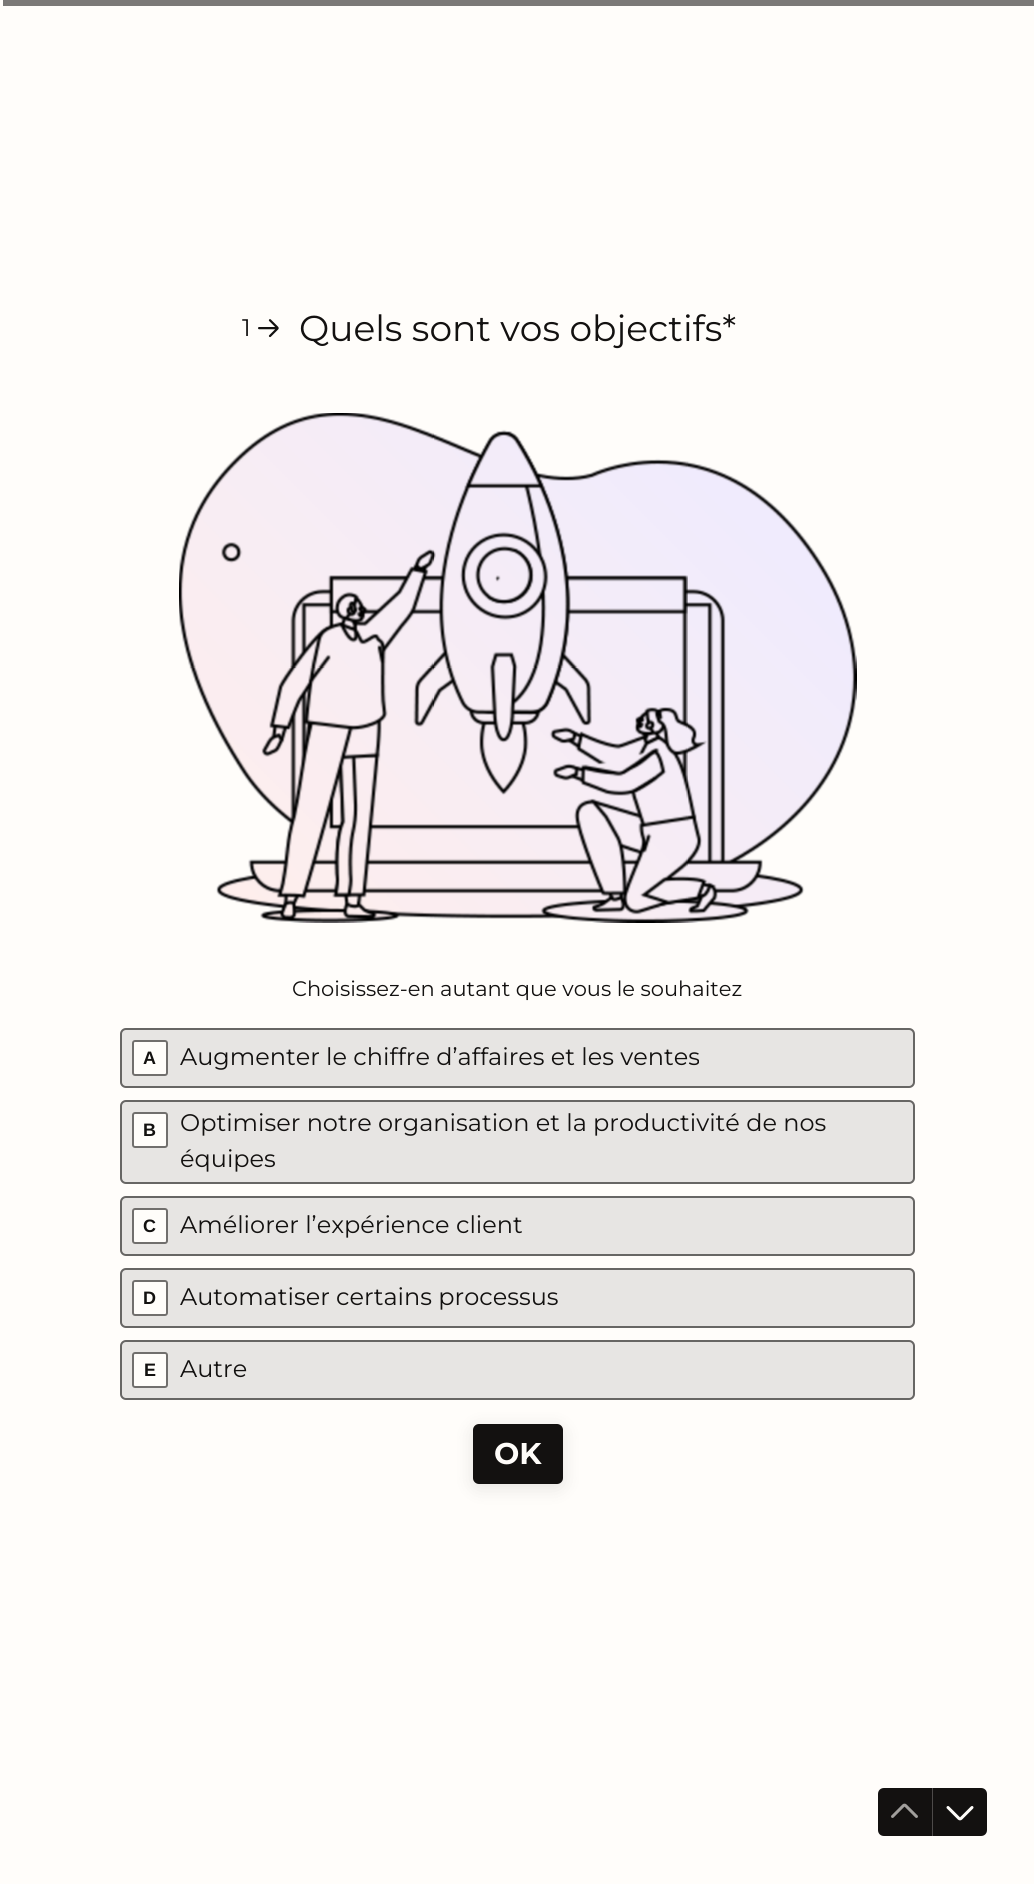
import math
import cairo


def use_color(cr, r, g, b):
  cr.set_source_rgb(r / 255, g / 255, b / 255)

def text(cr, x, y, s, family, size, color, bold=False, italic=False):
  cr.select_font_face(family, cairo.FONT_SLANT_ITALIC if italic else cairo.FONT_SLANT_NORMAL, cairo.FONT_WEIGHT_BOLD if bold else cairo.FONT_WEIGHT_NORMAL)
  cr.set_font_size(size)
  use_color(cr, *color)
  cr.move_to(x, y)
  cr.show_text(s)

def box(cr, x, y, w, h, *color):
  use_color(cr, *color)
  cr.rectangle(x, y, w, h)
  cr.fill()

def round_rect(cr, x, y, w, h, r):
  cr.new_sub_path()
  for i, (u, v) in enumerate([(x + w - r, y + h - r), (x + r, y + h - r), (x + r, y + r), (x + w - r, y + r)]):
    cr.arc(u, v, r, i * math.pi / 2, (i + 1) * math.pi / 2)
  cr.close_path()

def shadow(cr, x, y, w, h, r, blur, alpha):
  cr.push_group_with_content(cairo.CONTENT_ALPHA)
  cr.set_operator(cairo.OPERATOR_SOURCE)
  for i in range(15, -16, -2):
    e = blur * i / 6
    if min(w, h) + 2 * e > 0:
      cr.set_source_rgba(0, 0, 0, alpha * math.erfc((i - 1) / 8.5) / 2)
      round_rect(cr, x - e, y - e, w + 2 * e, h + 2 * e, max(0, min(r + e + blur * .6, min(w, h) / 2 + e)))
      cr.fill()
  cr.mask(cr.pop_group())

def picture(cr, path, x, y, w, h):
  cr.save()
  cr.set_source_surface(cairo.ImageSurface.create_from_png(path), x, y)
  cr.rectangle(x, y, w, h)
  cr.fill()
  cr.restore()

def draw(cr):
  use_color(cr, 255, 253, 250)
  cr.paint()
  box(cr, 0, 0, 1034, 6, 123, 121, 119)
  box(cr, 0, 0, 3, 6, 255, 253, 250)
  picture(cr, "img_01.png", 258, 319, 21, 19)
  picture(cr, "img_02.png", 179, 413, 678, 510)
  use_color(cr, 231, 229, 227)
  round_rect(cr, 120, 1028, 795, 60, 6)
  cr.fill()
  round_rect(cr, 121, 1029, 793, 58, 5)
  cr.set_source_rgba(0.075, 0.067, 0.063, 0.6)
  cr.stroke()
  use_color(cr, 255, 253, 250)
  round_rect(cr, 132, 1040, 36, 36, 3)
  cr.fill()
  round_rect(cr, 133, 1041, 34, 34, 2)
  cr.set_source_rgba(0.075, 0.067, 0.063, 0.6)
  cr.stroke()
  use_color(cr, 231, 229, 227)
  round_rect(cr, 120, 1100, 795, 84, 6)
  cr.fill()
  round_rect(cr, 121, 1101, 793, 82, 5)
  cr.set_source_rgba(0.075, 0.067, 0.063, 0.6)
  cr.stroke()
  use_color(cr, 255, 253, 250)
  round_rect(cr, 132, 1112, 36, 36, 3)
  cr.fill()
  round_rect(cr, 133, 1113, 34, 34, 2)
  cr.set_source_rgba(0.075, 0.067, 0.063, 0.6)
  cr.stroke()
  use_color(cr, 231, 229, 227)
  round_rect(cr, 120, 1196, 795, 60, 6)
  cr.fill()
  round_rect(cr, 121, 1197, 793, 58, 5)
  cr.set_source_rgba(0.075, 0.067, 0.063, 0.6)
  cr.stroke()
  use_color(cr, 255, 253, 250)
  round_rect(cr, 132, 1208, 36, 36, 3)
  cr.fill()
  round_rect(cr, 133, 1209, 34, 34, 2)
  cr.set_source_rgba(0.075, 0.067, 0.063, 0.6)
  cr.stroke()
  use_color(cr, 231, 229, 227)
  round_rect(cr, 120, 1268, 795, 60, 6)
  cr.fill()
  round_rect(cr, 121, 1269, 793, 58, 5)
  cr.set_source_rgba(0.075, 0.067, 0.063, 0.6)
  cr.stroke()
  use_color(cr, 255, 253, 250)
  round_rect(cr, 132, 1280, 36, 36, 3)
  cr.fill()
  round_rect(cr, 133, 1281, 34, 34, 2)
  cr.set_source_rgba(0.075, 0.067, 0.063, 0.6)
  cr.stroke()
  use_color(cr, 231, 229, 227)
  round_rect(cr, 120, 1340, 795, 60, 6)
  cr.fill()
  round_rect(cr, 121, 1341, 793, 58, 5)
  cr.set_source_rgba(0.075, 0.067, 0.063, 0.6)
  cr.stroke()
  use_color(cr, 255, 253, 250)
  round_rect(cr, 132, 1352, 36, 36, 3)
  cr.fill()
  round_rect(cr, 133, 1353, 34, 34, 2)
  cr.set_source_rgba(0.075, 0.067, 0.063, 0.6)
  cr.stroke()
  use_color(cr, 0, 0, 0)
  shadow(cr, 473, 1428, 90, 60, 6, 9, 0.1)
  use_color(cr, 19, 17, 16)
  round_rect(cr, 473, 1424, 90, 60, 6)
  cr.fill()
  cr.new_path()
  cr.move_to(884, 1788)
  cr.line_to(932, 1788)
  cr.line_to(932, 1836)
  cr.line_to(884, 1836)
  cr.curve_to(880.5, 1836, 878, 1833.5, 878, 1830)
  cr.line_to(878, 1794)
  cr.curve_to(878, 1790.5, 880.5, 1788, 884, 1788)
  cr.close_path()
  cr.fill()
  picture(cr, "img_03.png", 891, 1803, 27, 15)
  box(cr, 932, 1788, 1, 48, 77, 74, 73)
  use_color(cr, 19, 17, 16)
  cr.new_path()
  cr.move_to(933, 1788)
  cr.line_to(981, 1788)
  cr.curve_to(984.5, 1788, 987, 1790.5, 987, 1794)
  cr.line_to(987, 1830)
  cr.curve_to(987, 1833.5, 984.5, 1836, 981, 1836)
  cr.line_to(933, 1836)
  cr.close_path()
  cr.fill()
  picture(cr, "img_04.png", 946, 1806, 28, 15)
  text(cr, 242, 336, "1", "Montserrat Thin", 24, (19, 17, 16))
  text(cr, 299, 341, "Quels sont vos objectifs*", "Montserrat Thin", 36, (19, 17, 16))
  text(cr, 292, 996, "Choisissez-en autant que vous le souhaitez", "Montserrat Thin", 21, (19, 17, 16))
  text(cr, 143, 1064, "A", "Liberation Sans", 18, (19, 17, 16), bold=True)
  text(cr, 180, 1065, "Augmenter le chiffre d’affaires et les ventes", "Montserrat Thin", 24, (19, 17, 16))
  text(cr, 143, 1136, "B", "Liberation Sans", 18, (19, 17, 16), bold=True)
  text(cr, 180, 1131, "Optimiser notre organisation et la productivité de nos", "Montserrat Thin", 24, (19, 17, 16))
  text(cr, 180, 1167, "équipes", "Montserrat Thin", 24, (19, 17, 16))
  text(cr, 143, 1232, "C", "Liberation Sans", 18, (19, 17, 16), bold=True)
  text(cr, 180, 1233, "Améliorer l’expérience client", "Montserrat Thin", 24, (19, 17, 16))
  text(cr, 143, 1304, "D", "Liberation Sans", 18, (19, 17, 16), bold=True)
  text(cr, 180, 1305, "Automatiser certains processus", "Montserrat Thin", 24, (19, 17, 16))
  text(cr, 144, 1376, "E", "Liberation Sans", 18, (19, 17, 16), bold=True)
  text(cr, 180, 1377, "Autre", "Montserrat Thin", 24, (19, 17, 16))
  text(cr, 494, 1464, "OK", "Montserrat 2 Thin", 30, (255, 253, 250))


surface = cairo.ImageSurface(cairo.FORMAT_RGB24, 1034, 1884)
cr = cairo.Context(surface)
options = cairo.FontOptions()
options.set_hint_metrics(cairo.HINT_METRICS_OFF)
options.set_hint_style(cairo.HINT_STYLE_NONE)
cr.set_font_options(options)
cr.set_miter_limit(4)
draw(cr)
surface.write_to_png("out.png")
